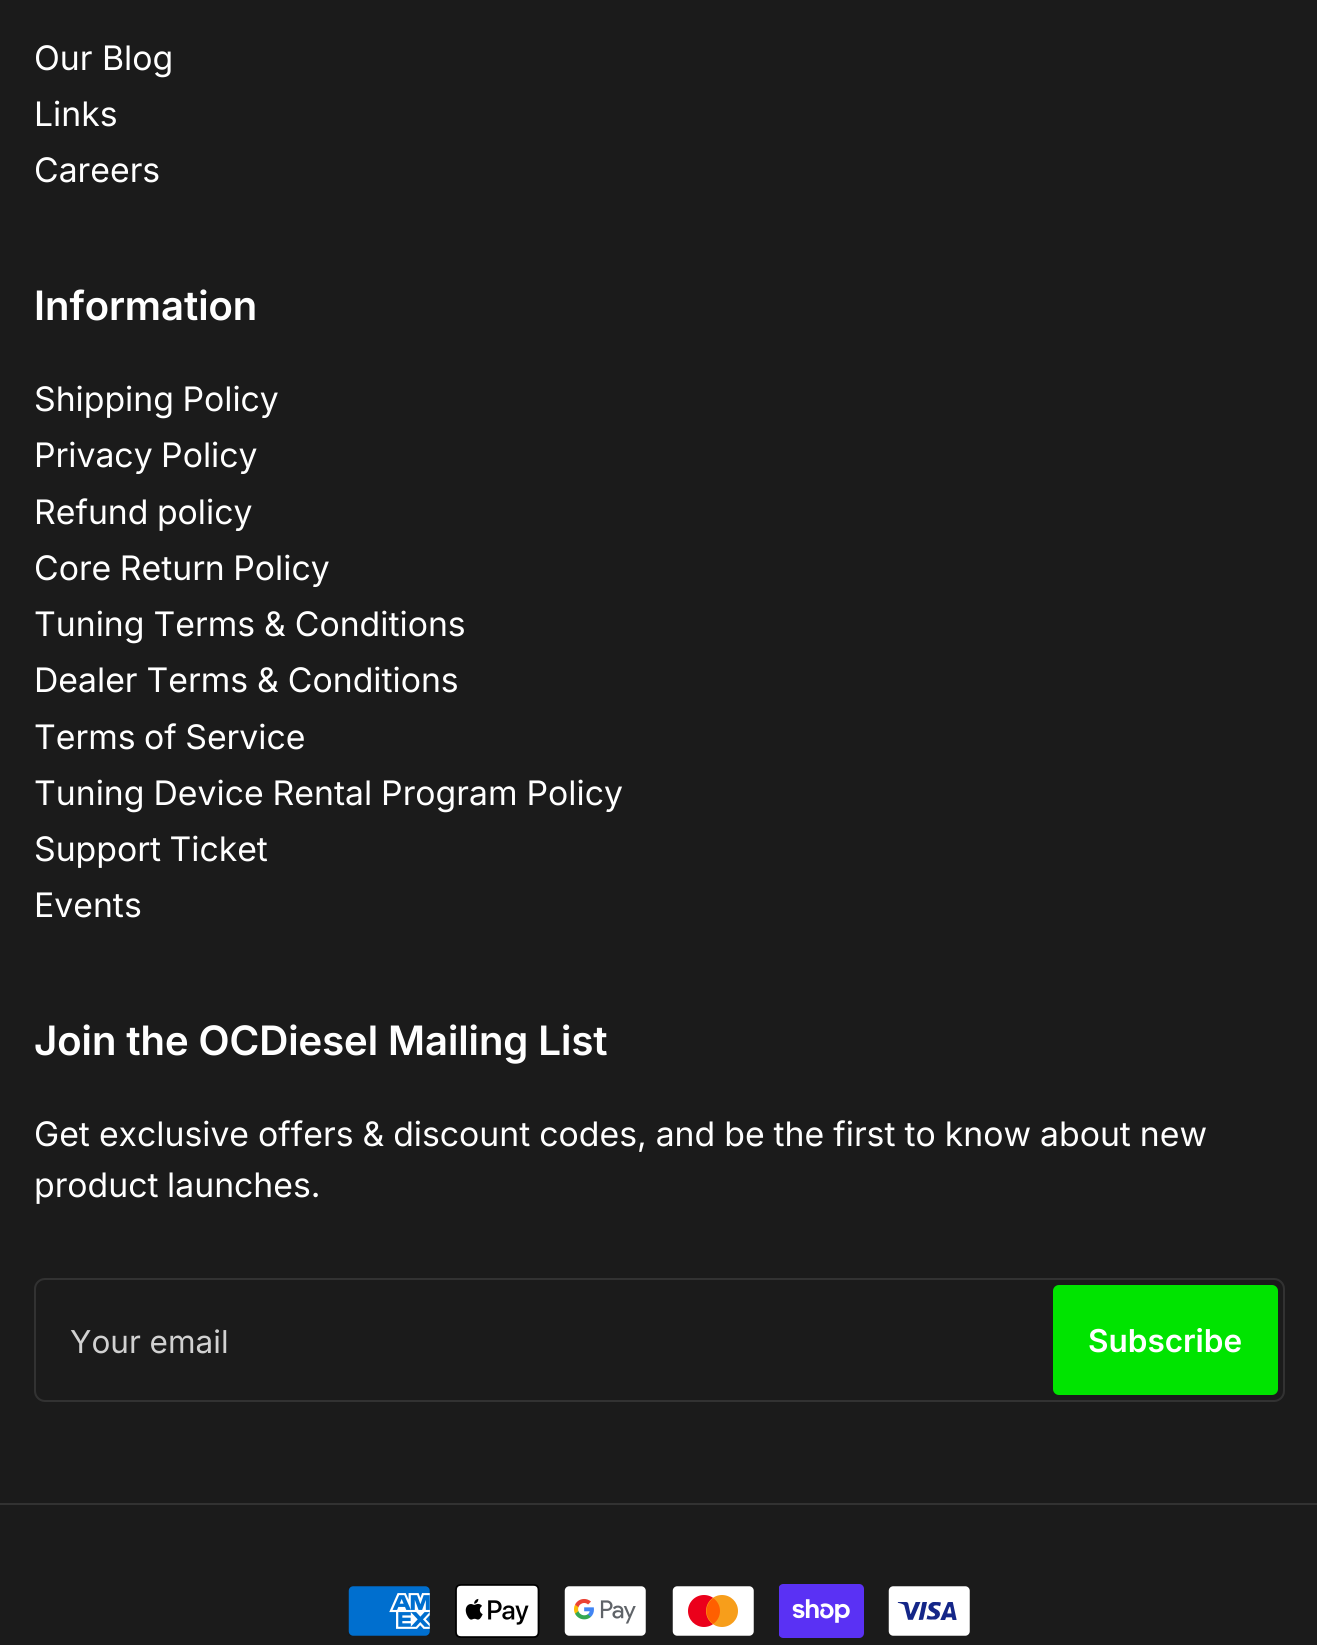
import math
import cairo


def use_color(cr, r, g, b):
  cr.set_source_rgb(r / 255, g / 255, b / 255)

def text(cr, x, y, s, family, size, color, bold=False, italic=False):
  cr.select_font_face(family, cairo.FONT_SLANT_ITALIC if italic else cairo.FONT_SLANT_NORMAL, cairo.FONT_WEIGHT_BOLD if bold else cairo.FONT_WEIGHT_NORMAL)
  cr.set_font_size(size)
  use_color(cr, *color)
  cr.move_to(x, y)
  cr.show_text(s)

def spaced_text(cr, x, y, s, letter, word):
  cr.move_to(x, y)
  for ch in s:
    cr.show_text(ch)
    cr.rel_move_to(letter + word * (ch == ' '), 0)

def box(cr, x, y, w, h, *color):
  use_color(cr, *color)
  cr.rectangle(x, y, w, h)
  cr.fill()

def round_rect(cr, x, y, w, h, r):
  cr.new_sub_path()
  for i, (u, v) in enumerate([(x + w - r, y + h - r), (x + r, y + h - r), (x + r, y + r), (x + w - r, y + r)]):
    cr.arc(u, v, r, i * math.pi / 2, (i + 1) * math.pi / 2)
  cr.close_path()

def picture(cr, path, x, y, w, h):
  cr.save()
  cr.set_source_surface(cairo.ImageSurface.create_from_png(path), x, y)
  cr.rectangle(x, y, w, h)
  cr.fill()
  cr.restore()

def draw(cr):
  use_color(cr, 27, 27, 27)
  cr.paint()
  round_rect(cr, 35, 1279, 1249, 122, 10)
  use_color(cr, 50, 50, 50)
  cr.stroke()
  use_color(cr, 0, 228, 0)
  round_rect(cr, 1054, 1286, 223, 108, 5)
  cr.fill_preserve()
  cr.stroke()
  box(cr, 0, 1503, 1317, 2, 50, 50, 50)
  picture(cr, "img_01.png", 348, 1586, 82, 50)
  picture(cr, "img_02.png", 455, 1584, 85, 54)
  picture(cr, "img_03.png", 564, 1586, 82, 50)
  picture(cr, "img_04.png", 672, 1586, 82, 50)
  picture(cr, "img_05.png", 779, 1584, 85, 54)
  picture(cr, "img_06.png", 888, 1586, 82, 50)
  text(cr, 34, 70, "Our Blog", "Inter", 33.75, (255, 255, 255))
  text(cr, 34, 126, "Links", "Inter", 33.75, (255, 255, 255))
  text(cr, 34, 182, "Careers", "Inter", 33.75, (255, 255, 255))
  text(cr, 34, 320, "Information", "Inter SemiBold", 40.5, (255, 255, 255))
  cr.select_font_face("Inter")
  cr.set_font_size(33.75)
  spaced_text(cr, 34, 411, "Shipping Policy", 0, -1)
  spaced_text(cr, 34, 467, "Privacy Policy", 0, -1)
  spaced_text(cr, 34, 524, "Refund policy", 0, -1)
  spaced_text(cr, 34, 580, "Core Return Policy", 0, -1)
  spaced_text(cr, 34, 636, "Tuning Terms & Conditions", 0, -0.5)
  spaced_text(cr, 34, 692, "Dealer Terms & Conditions", 0, -0.5)
  spaced_text(cr, 34, 749, "Terms of Service", 0, -1)
  spaced_text(cr, 34, 805, "Tuning Device Rental Program Policy", 0, -0.5)
  spaced_text(cr, 34, 861, "Support Ticket", 0, -1)
  text(cr, 34, 917, "Events", "Inter", 33.75, (255, 255, 255))
  text(cr, 34, 1055, "Join the OCDiesel Mailing List", "Inter SemiBold", 40.5, (255, 255, 255))
  cr.select_font_face("Inter")
  cr.set_font_size(33.75)
  spaced_text(cr, 34, 1146, "Get exclusive offers & discount codes, and be the first to know about new", 0, -0.5)
  spaced_text(cr, 34, 1197, "product launches.", 0, -1)
  text(cr, 70, 1353, "Your email", "Inter", 31.5, (209, 209, 209))
  text(cr, 1088, 1352, "Subscribe", "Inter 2 SemiBold", 31.5, (255, 255, 255))


surface = cairo.ImageSurface(cairo.FORMAT_RGB24, 1317, 1645)
cr = cairo.Context(surface)
options = cairo.FontOptions()
options.set_hint_metrics(cairo.HINT_METRICS_OFF)
options.set_hint_style(cairo.HINT_STYLE_NONE)
cr.set_font_options(options)
cr.set_miter_limit(4)
draw(cr)
surface.write_to_png("out.png")
